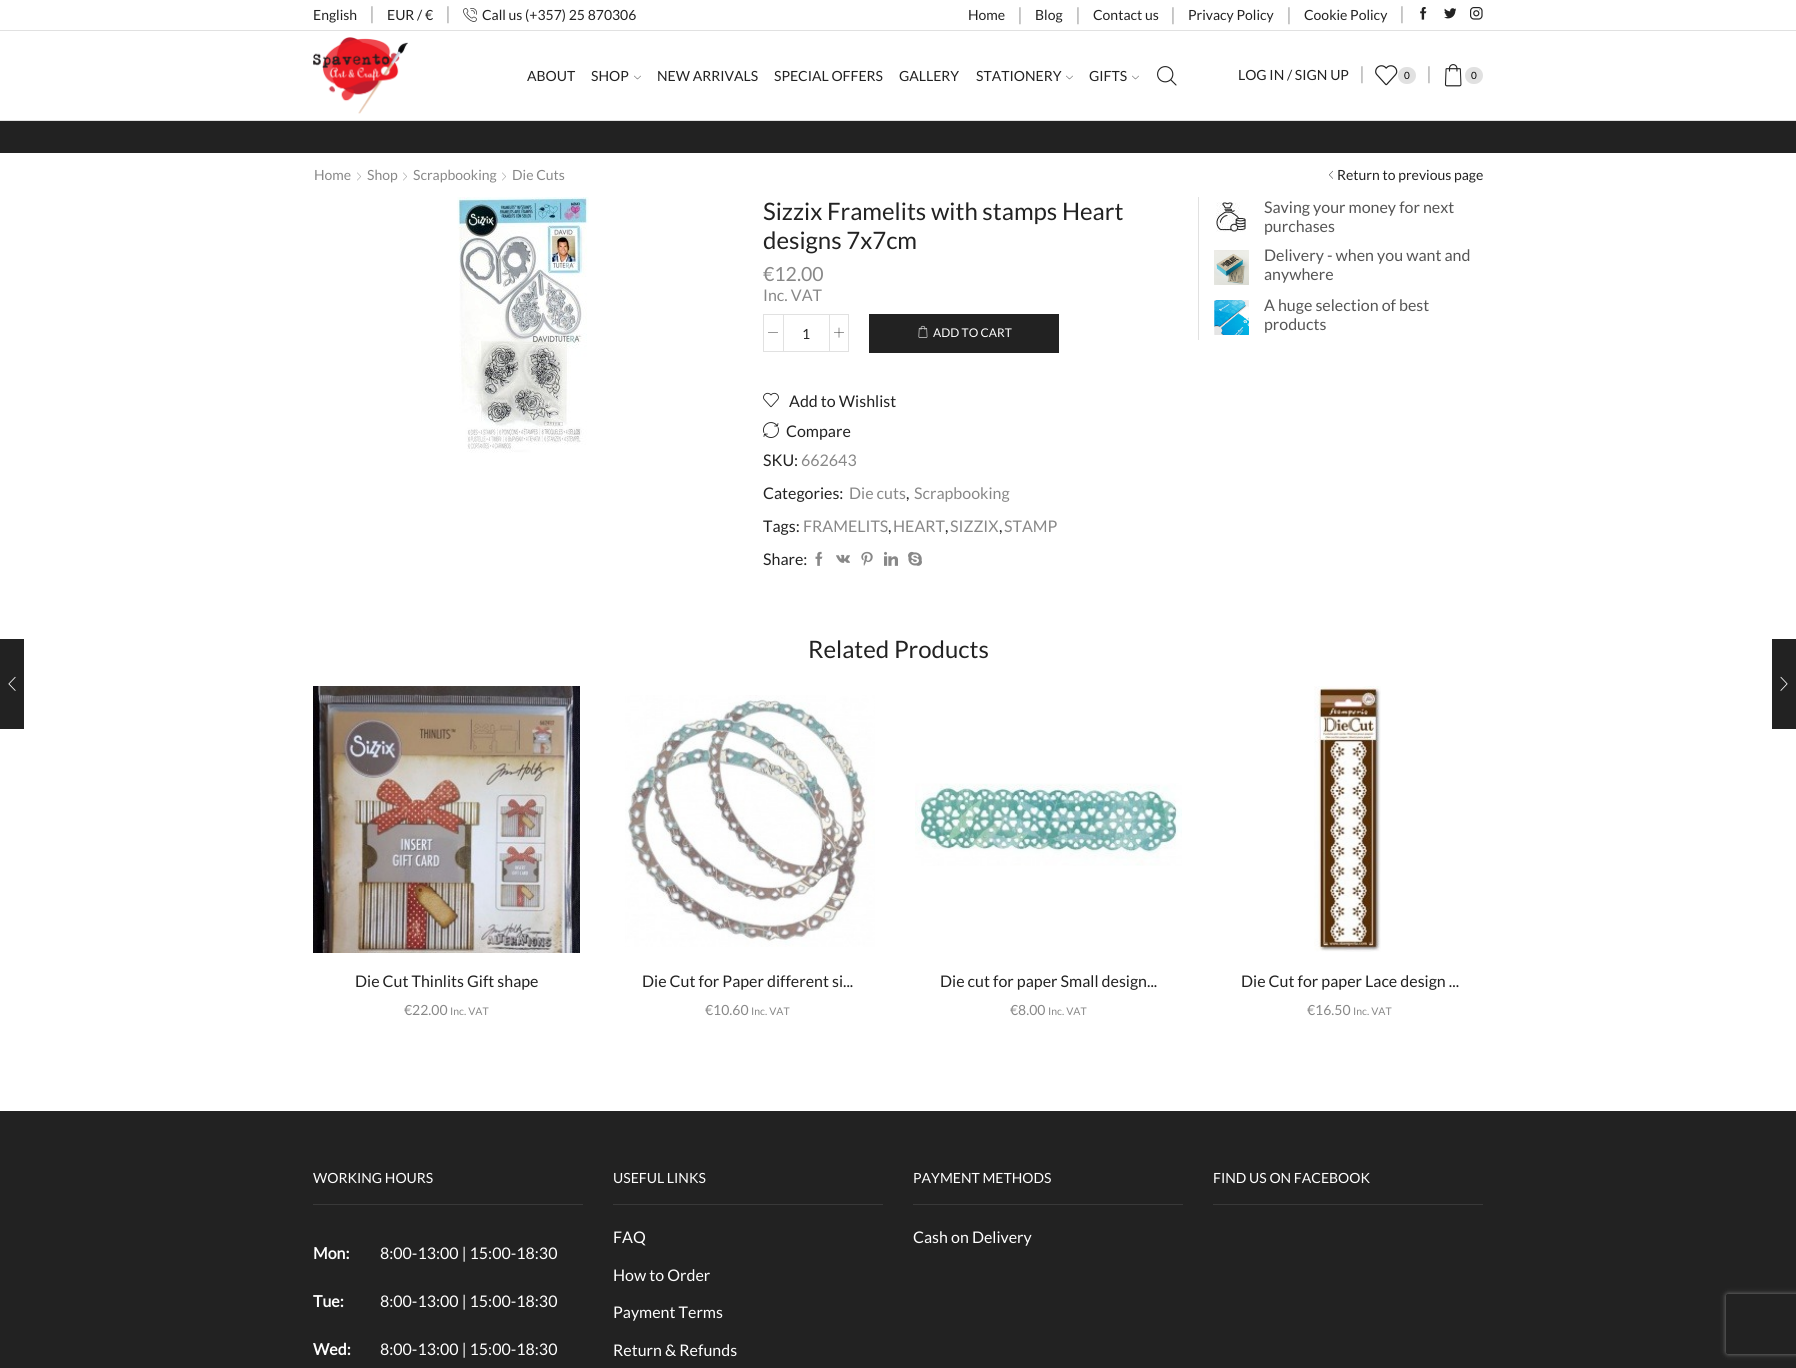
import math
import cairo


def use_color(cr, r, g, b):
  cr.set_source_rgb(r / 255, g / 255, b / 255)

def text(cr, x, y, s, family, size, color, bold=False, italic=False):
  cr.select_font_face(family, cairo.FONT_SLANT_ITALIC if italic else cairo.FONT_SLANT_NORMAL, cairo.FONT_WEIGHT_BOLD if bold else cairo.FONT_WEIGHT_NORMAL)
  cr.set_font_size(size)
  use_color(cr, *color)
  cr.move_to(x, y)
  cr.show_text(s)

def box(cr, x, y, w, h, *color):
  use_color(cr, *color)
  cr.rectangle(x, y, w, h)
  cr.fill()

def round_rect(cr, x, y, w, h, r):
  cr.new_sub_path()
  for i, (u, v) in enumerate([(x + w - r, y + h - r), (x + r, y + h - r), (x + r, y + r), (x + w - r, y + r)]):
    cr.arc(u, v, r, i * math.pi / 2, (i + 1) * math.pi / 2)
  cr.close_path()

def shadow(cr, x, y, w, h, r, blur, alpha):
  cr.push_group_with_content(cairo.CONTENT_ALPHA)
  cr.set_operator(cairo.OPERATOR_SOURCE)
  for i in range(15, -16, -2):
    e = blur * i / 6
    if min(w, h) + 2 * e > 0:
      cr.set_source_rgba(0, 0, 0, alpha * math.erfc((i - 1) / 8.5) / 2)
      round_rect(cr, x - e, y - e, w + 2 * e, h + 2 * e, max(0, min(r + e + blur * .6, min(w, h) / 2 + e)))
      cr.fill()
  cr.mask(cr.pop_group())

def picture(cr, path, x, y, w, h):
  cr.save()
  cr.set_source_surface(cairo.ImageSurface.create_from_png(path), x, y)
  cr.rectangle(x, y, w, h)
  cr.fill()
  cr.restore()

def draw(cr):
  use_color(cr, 255, 255, 255)
  cr.paint()
  box(cr, 0, 30, 1796, 1, 225, 225, 225)
  picture(cr, "img_01.png", 463, 8, 14, 14)
  picture(cr, "img_02.png", 1420, 7, 7, 13)
  picture(cr, "img_03.png", 1444, 8, 12, 11)
  picture(cr, "img_04.png", 1470, 7, 13, 13)
  box(cr, 0, 120, 1796, 1, 225, 225, 225)
  picture(cr, "img_05.png", 313, 37, 95, 77)
  picture(cr, "img_06.png", 634, 75, 7, 5)
  picture(cr, "img_06.png", 1066, 75, 7, 5)
  picture(cr, "img_06.png", 1132, 75, 7, 5)
  picture(cr, "img_07.png", 1157, 66, 20, 20)
  picture(cr, "img_08.png", 1375, 65, 23, 21)
  round_rect(cr, 1398, 67, 18, 17, 8.5)
  cr.fill()
  picture(cr, "img_09.png", 1444, 64, 18, 23)
  round_rect(cr, 1465, 67, 18, 17, 8.5)
  cr.fill()
  box(cr, 0, 121, 1796, 32, 34, 34, 34)
  picture(cr, "img_10.png", 357, 172, 4, 9)
  picture(cr, "img_10.png", 403, 172, 4, 9)
  picture(cr, "img_10.png", 502, 172, 4, 9)
  picture(cr, "img_11.png", 1329, 170, 4, 9)
  picture(cr, "img_12.png", 457, 197, 132, 256)
  cr.rectangle(763.5, 314.5, 20, 37)
  use_color(cr, 225, 225, 225)
  cr.set_line_width(1)
  cr.stroke()
  picture(cr, "img_13.png", 768, 332, 10, 1)
  box(cr, 784, 314, 45, 1, 225, 225, 225)
  box(cr, 784, 351, 45, 1, 225, 225, 225)
  cr.rectangle(829.5, 314.5, 19, 37)
  cr.stroke()
  picture(cr, "img_14.png", 834, 327, 10, 11)
  box(cr, 869, 314, 190, 39, 34, 34, 34)
  picture(cr, "img_15.png", 918, 325, 10, 13)
  picture(cr, "img_16.png", 763, 392, 16, 16)
  picture(cr, "img_17.png", 763, 422, 16, 16)
  picture(cr, "img_18.png", 815, 551, 8, 15)
  picture(cr, "img_19.png", 836, 554, 14, 9)
  picture(cr, "img_20.png", 861, 551, 12, 15)
  picture(cr, "img_21.png", 884, 551, 14, 15)
  picture(cr, "img_22.png", 908, 551, 14, 15)
  box(cr, 1198, 197, 1, 143, 225, 225, 225)
  picture(cr, "img_23.png", 1216, 202, 30, 30)
  picture(cr, "img_24.png", 1214, 250, 35, 35)
  picture(cr, "img_25.png", 1214, 300, 35, 35)
  box(cr, 0, 639, 24, 90, 34, 34, 34)
  picture(cr, "img_26.png", 8, 676, 8, 15)
  box(cr, 1772, 639, 24, 90, 34, 34, 34)
  picture(cr, "img_27.png", 1780, 676, 8, 15)
  picture(cr, "img_28.png", 313, 686, 267, 267)
  picture(cr, "img_29.png", 625, 695, 250, 252)
  picture(cr, "img_30.png", 915, 783, 267, 83)
  picture(cr, "img_31.png", 1314, 686, 67, 266)
  box(cr, 0, 1111, 1796, 257, 34, 34, 34)
  box(cr, 313, 1204, 270, 1, 57, 57, 57)
  box(cr, 613, 1204, 270, 1, 57, 57, 57)
  box(cr, 913, 1204, 270, 1, 57, 57, 57)
  box(cr, 1213, 1204, 270, 1, 57, 57, 57)
  cr.save()
  cr.set_fill_rule(cairo.FILL_RULE_EVEN_ODD)
  cr.new_path()
  cr.move_to(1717, 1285)
  cr.line_to(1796, 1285)
  cr.line_to(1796, 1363)
  cr.line_to(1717, 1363)
  cr.close_path()
  cr.move_to(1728, 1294)
  cr.line_to(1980, 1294)
  cr.curve_to(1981, 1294, 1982, 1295, 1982, 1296)
  cr.line_to(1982, 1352)
  cr.curve_to(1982, 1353, 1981, 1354, 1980, 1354)
  cr.line_to(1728, 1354)
  cr.curve_to(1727, 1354, 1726, 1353, 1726, 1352)
  cr.line_to(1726, 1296)
  cr.curve_to(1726, 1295, 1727, 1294, 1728, 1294)
  cr.close_path()
  cr.clip()
  use_color(cr, 128, 128, 128)
  shadow(cr, 1726, 1294, 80, 60, 2, 2.5, 1)
  cr.restore()
  text(cr, 313, 20, "English", "Lato", 14, (34, 34, 34))
  text(cr, 367, 19, "│", "Liberation Serif", 14, (145, 145, 145))
  text(cr, 387, 20, "EUR / €", "Lato", 14, (34, 34, 34))
  text(cr, 443, 19, "│", "Liberation Serif", 14, (145, 145, 145))
  text(cr, 482, 20, "Call us (+357) 25 870306", "Lato", 14, (34, 34, 34))
  text(cr, 968, 20, "Home", "Lato", 14, (34, 34, 34))
  text(cr, 1015, 20, "│", "Liberation Serif", 14, (145, 145, 145))
  text(cr, 1035, 20, "Blog", "Lato", 14, (34, 34, 34))
  text(cr, 1073, 20, "│", "Liberation Serif", 14, (145, 145, 145))
  text(cr, 1093, 20, "Contact us", "Lato", 14, (34, 34, 34))
  text(cr, 1168, 20, "│", "Liberation Serif", 14, (145, 145, 145))
  text(cr, 1188, 20, "Privacy Policy", "Lato", 14, (34, 34, 34))
  text(cr, 1284, 20, "│", "Liberation Serif", 14, (145, 145, 145))
  text(cr, 1304, 20, "Cookie Policy", "Lato", 14, (34, 34, 34))
  text(cr, 1397, 19, "│", "Liberation Serif", 14, (145, 145, 145))
  text(cr, 527, 81, "ABOUT", "Lato", 14, (34, 34, 34))
  text(cr, 591, 81, "SHOP", "Lato", 14, (34, 34, 34))
  text(cr, 657, 81, "NEW ARRIVALS", "Lato", 14, (34, 34, 34))
  text(cr, 774, 81, "SPECIAL OFFERS", "Lato", 14, (34, 34, 34))
  text(cr, 899, 81, "GALLERY", "Lato", 14, (34, 34, 34))
  text(cr, 976, 81, "STATIONERY", "Lato", 14, (34, 34, 34))
  text(cr, 1089, 81, "GIFTS", "Lato", 14, (34, 34, 34))
  text(cr, 1238, 80, "LOG IN / SIGN UP", "Lato", 14, (34, 34, 34))
  text(cr, 1357, 79, "│", "Liberation Serif", 14, (145, 145, 145))
  text(cr, 1404, 79, "0", "Lato", 10, (0, 0, 0))
  text(cr, 1424, 79, "│", "Liberation Serif", 14, (145, 145, 145))
  text(cr, 1471, 79, "0", "Lato", 10, (0, 0, 0))
  text(cr, 314, 180, "Home", "Lato", 14, (136, 136, 136))
  text(cr, 367, 180, "Shop", "Lato", 14, (136, 136, 136))
  text(cr, 413, 180, "Scrapbooking", "Lato", 14, (136, 136, 136))
  text(cr, 512, 180, "Die Cuts", "Lato", 14, (136, 136, 136))
  text(cr, 1337, 180, "Return to previous page", "Lato", 14, (34, 34, 34))
  text(cr, 763, 220, "Sizzix Framelits with stamps Heart", "Lato", 24, (34, 34, 34))
  text(cr, 763, 249, "designs 7x7cm", "Lato", 24, (34, 34, 34))
  text(cr, 763, 281, "€12.00", "Lato", 19.5, (136, 136, 136))
  text(cr, 763, 301, "Inc. VAT", "Lato", 16, (136, 136, 136))
  text(cr, 802, 339, "1", "Lato", 14, (34, 34, 34))
  text(cr, 933, 337, "ADD TO CART", "Lato", 12, (255, 255, 255))
  text(cr, 789, 407, "Add to Wishlist", "Lato", 16, (34, 34, 34))
  text(cr, 786, 437, "Compare", "Lato", 16, (34, 34, 34))
  text(cr, 763, 466, "SKU:", "Lato", 16, (34, 34, 34))
  text(cr, 801, 466, "662643", "Lato", 16, (136, 136, 136))
  text(cr, 763, 499, "Categories:", "Lato", 16, (34, 34, 34))
  text(cr, 849, 499, "Die cuts", "Lato", 16, (136, 136, 136))
  text(cr, 906, 499, ",", "Lato", 16, (34, 34, 34))
  text(cr, 914, 499, "Scrapbooking", "Lato", 16, (136, 136, 136))
  text(cr, 763, 532, "Tags:", "Lato", 16, (34, 34, 34))
  text(cr, 803, 532, "FRAMELITS", "Lato", 16, (136, 136, 136))
  text(cr, 888, 532, ",", "Lato", 16, (34, 34, 34))
  text(cr, 893, 532, "HEART", "Lato", 16, (136, 136, 136))
  text(cr, 945, 532, ",", "Lato", 16, (34, 34, 34))
  text(cr, 950, 532, "SIZZIX", "Lato", 16, (136, 136, 136))
  text(cr, 999, 532, ",", "Lato", 16, (34, 34, 34))
  text(cr, 1004, 532, "STAMP", "Lato", 16, (136, 136, 136))
  text(cr, 763, 565, "Share:", "Lato", 16, (34, 34, 34))
  text(cr, 1264, 213, "Saving your money for next", "Lato", 16, (85, 85, 85))
  text(cr, 1264, 232, "purchases", "Lato", 16, (85, 85, 85))
  text(cr, 1264, 261, "Delivery - when you want and", "Lato", 16, (85, 85, 85))
  text(cr, 1264, 280, "anywhere", "Lato", 16, (85, 85, 85))
  text(cr, 1264, 311, "A huge selection of best", "Lato", 16, (85, 85, 85))
  text(cr, 1264, 330, "products", "Lato", 16, (85, 85, 85))
  text(cr, 808, 658, "Related Products", "Lato", 24, (34, 34, 34))
  text(cr, 355, 987, "Die Cut Thinlits Gift shape", "Lato", 16, (34, 34, 34))
  text(cr, 404, 1015, "€22.00", "Lato", 14, (136, 136, 136))
  text(cr, 450, 1015, "Inc. VAT", "Lato", 10.5, (136, 136, 136))
  text(cr, 642, 987, "Die Cut for Paper different si...", "Lato", 16, (34, 34, 34))
  text(cr, 705, 1015, "€10.60", "Lato", 14, (136, 136, 136))
  text(cr, 751, 1015, "Inc. VAT", "Lato", 10.5, (136, 136, 136))
  text(cr, 940, 987, "Die cut for paper Small design...", "Lato", 16, (34, 34, 34))
  text(cr, 1010, 1015, "€8.00", "Lato", 14, (136, 136, 136))
  text(cr, 1048, 1015, "Inc. VAT", "Lato", 10.5, (136, 136, 136))
  text(cr, 1241, 987, "Die Cut for paper Lace design ...", "Lato", 16, (34, 34, 34))
  text(cr, 1307, 1015, "€16.50", "Lato", 14, (136, 136, 136))
  text(cr, 1353, 1015, "Inc. VAT", "Lato", 10.5, (136, 136, 136))
  text(cr, 313, 1183, "WORKING HOURS", "Lato", 14, (255, 255, 255))
  text(cr, 313, 1259, "Mon:", "Lato", 16, (255, 255, 255), bold=True)
  text(cr, 380, 1259, "8:00-13:00 | 15:00-18:30", "Lato", 16, (255, 255, 255))
  text(cr, 313, 1307, "Tue:", "Lato", 16, (255, 255, 255), bold=True)
  text(cr, 380, 1307, "8:00-13:00 | 15:00-18:30", "Lato", 16, (255, 255, 255))
  text(cr, 313, 1355, "Wed:", "Lato", 16, (255, 255, 255), bold=True)
  text(cr, 380, 1355, "8:00-13:00 | 15:00-18:30", "Lato", 16, (255, 255, 255))
  text(cr, 613, 1183, "USEFUL LINKS", "Lato", 14, (255, 255, 255))
  text(cr, 613, 1243, "FAQ", "Lato", 16, (255, 255, 255))
  text(cr, 613, 1281, "How to Order", "Lato", 16, (255, 255, 255))
  text(cr, 613, 1318, "Payment Terms", "Lato", 16, (255, 255, 255))
  text(cr, 613, 1356, "Return & Refunds", "Lato", 16, (255, 255, 255))
  text(cr, 913, 1183, "PAYMENT METHODS", "Lato", 14, (255, 255, 255))
  text(cr, 913, 1243, "Cash on Delivery", "Lato", 16, (255, 255, 255))
  text(cr, 1213, 1183, "FIND US ON FACEBOOK", "Lato", 14, (255, 255, 255))


surface = cairo.ImageSurface(cairo.FORMAT_RGB24, 1796, 1368)
cr = cairo.Context(surface)
options = cairo.FontOptions()
options.set_hint_metrics(cairo.HINT_METRICS_OFF)
options.set_hint_style(cairo.HINT_STYLE_NONE)
cr.set_font_options(options)
cr.set_miter_limit(4)
draw(cr)
surface.write_to_png("out.png")
